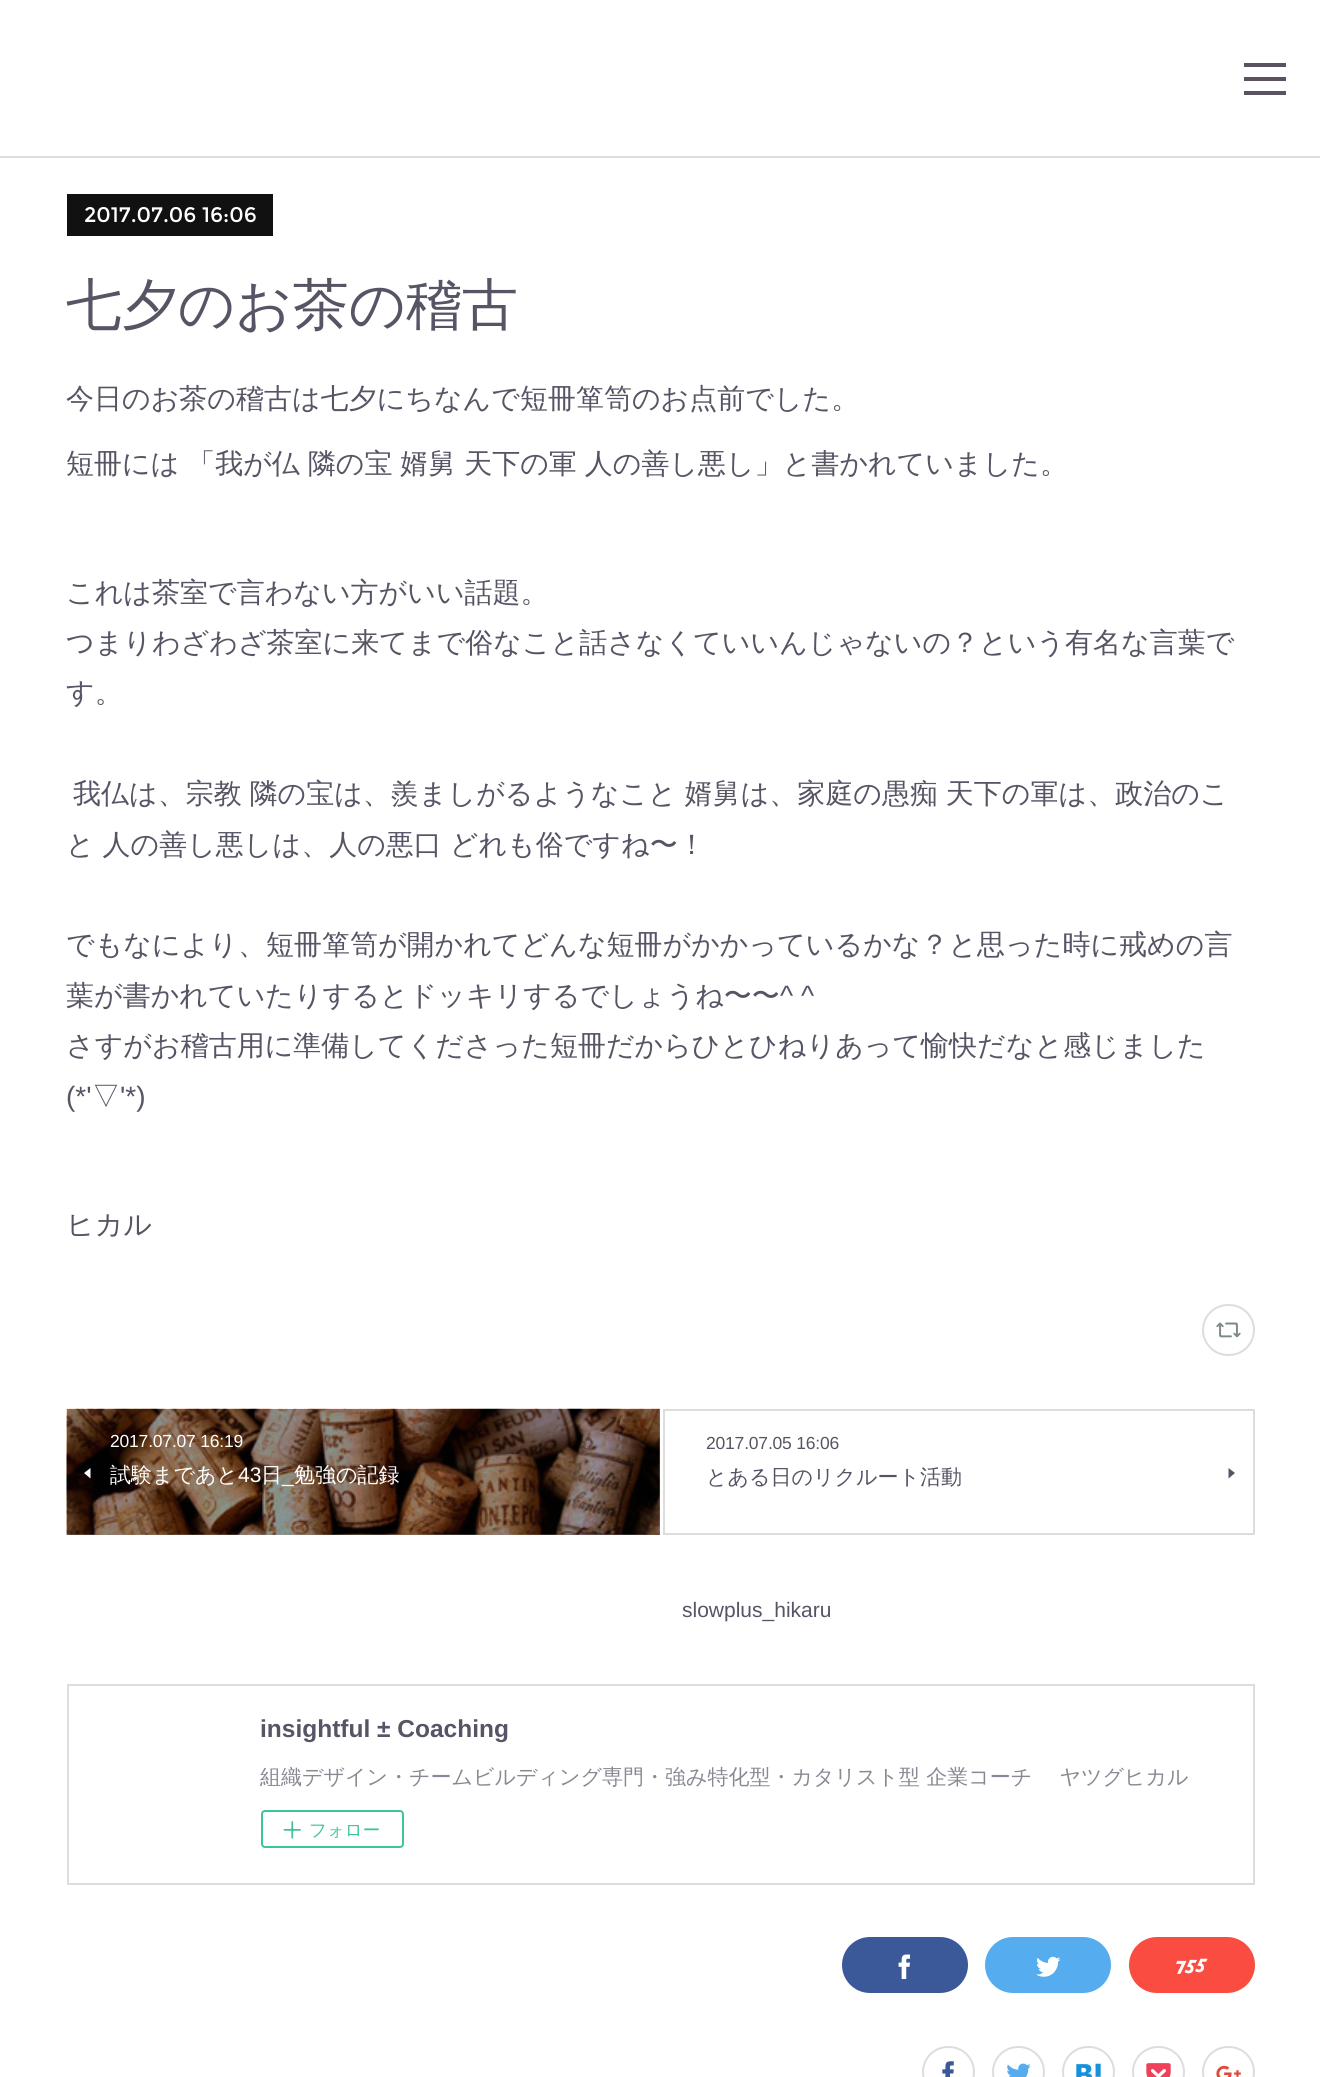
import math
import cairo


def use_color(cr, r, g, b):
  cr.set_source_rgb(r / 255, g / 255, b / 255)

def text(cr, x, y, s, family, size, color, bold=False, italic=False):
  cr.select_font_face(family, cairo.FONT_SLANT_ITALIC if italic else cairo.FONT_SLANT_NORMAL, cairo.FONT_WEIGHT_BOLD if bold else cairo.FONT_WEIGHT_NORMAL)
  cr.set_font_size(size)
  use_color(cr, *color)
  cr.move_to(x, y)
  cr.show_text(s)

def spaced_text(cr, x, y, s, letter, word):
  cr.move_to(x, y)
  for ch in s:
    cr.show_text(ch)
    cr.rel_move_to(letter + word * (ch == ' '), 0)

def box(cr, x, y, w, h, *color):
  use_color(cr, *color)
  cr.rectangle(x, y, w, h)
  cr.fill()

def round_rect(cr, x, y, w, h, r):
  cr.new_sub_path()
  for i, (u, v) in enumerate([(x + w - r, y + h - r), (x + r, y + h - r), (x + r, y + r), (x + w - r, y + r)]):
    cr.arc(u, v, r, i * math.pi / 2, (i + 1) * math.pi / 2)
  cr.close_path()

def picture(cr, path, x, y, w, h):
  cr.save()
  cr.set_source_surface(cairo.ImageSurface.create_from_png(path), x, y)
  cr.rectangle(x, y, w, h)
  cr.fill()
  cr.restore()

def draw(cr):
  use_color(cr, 255, 255, 255)
  cr.paint()
  box(cr, 67, 1409, 593, 126, 153, 153, 153)
  box(cr, 0, 156, 1320, 2, 221, 221, 221)
  box(cr, 1244, 63, 42, 4, 88, 83, 94)
  box(cr, 1244, 77, 42, 4, 88, 83, 94)
  box(cr, 1244, 91, 42, 4, 88, 83, 94)
  box(cr, 67, 194, 206, 42, 17, 17, 17)
  round_rect(cr, 1203, 1305, 51, 50, 25)
  use_color(cr, 221, 221, 221)
  cr.stroke()
  picture(cr, "img_01.png", 1216, 1322, 25, 16)
  picture(cr, "img_02.png", 66, 1408, 594, 127)
  use_color(cr, 255, 255, 255)
  cr.new_path()
  cr.move_to(90.5, 1478.5)
  cr.line_to(90.5, 1468)
  cr.line_to(84, 1473)
  cr.close_path()
  cr.fill()
  cr.rectangle(664, 1410, 590, 124)
  use_color(cr, 221, 221, 221)
  cr.stroke()
  use_color(cr, 86, 85, 101)
  cr.new_path()
  cr.move_to(1228.5, 1468)
  cr.line_to(1228.5, 1478.5)
  cr.line_to(1235, 1473)
  cr.close_path()
  cr.fill()
  cr.rectangle(68, 1685, 1186, 199)
  use_color(cr, 221, 221, 221)
  cr.stroke()
  round_rect(cr, 262, 1811, 141, 36, 3)
  use_color(cr, 61, 196, 157)
  cr.stroke()
  picture(cr, "img_03.png", 283, 1821, 18, 18)
  use_color(cr, 59, 89, 152)
  round_rect(cr, 842, 1937, 126, 56, 28)
  cr.fill()
  picture(cr, "img_04.png", 898, 1954, 12, 25)
  use_color(cr, 85, 172, 238)
  round_rect(cr, 985, 1937, 126, 56, 28)
  cr.fill()
  picture(cr, "img_05.png", 1036, 1956, 25, 21)
  use_color(cr, 251, 76, 66)
  round_rect(cr, 1129, 1937, 126, 56, 28)
  cr.fill()
  picture(cr, "img_06.png", 1176, 1958, 32, 16)
  round_rect(cr, 923, 2047, 51, 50, 25)
  use_color(cr, 221, 221, 221)
  cr.stroke()
  picture(cr, "img_07.png", 942, 2061, 12, 16)
  round_rect(cr, 993, 2047, 51, 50, 25)
  cr.stroke()
  picture(cr, "img_08.png", 1007, 2063, 24, 14)
  round_rect(cr, 1063, 2047, 51, 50, 25)
  cr.stroke()
  picture(cr, "img_09.png", 1076, 2063, 25, 14)
  round_rect(cr, 1133, 2047, 51, 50, 25)
  cr.stroke()
  picture(cr, "img_10.png", 1146, 2063, 25, 14)
  round_rect(cr, 1203, 2047, 51, 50, 25)
  cr.stroke()
  picture(cr, "img_11.png", 1216, 2065, 25, 12)
  text(cr, 84, 222, "2017.07.06 16:06", "Montserrat", 21, (255, 255, 255))
  text(cr, 66, 324, "七夕のお茶の稽古", "WenQuanYi Zen Hei Medium", 56, (86, 85, 101))
  text(cr, 66, 408, "今日のお茶の稽古は七夕にちなんで短冊箪笥のお点前でした。", "WenQuanYi Zen Hei Medium", 28, (86, 85, 101))
  spaced_text(cr, 66, 473, "短冊には 「我が仏 隣の宝 婿舅 天下の軍 人の善し悪し」と書かれていました。", 0, -0.5)
  text(cr, 66, 602, "これは茶室で言わない方がいい話題。", "WenQuanYi Zen Hei Medium", 28, (86, 85, 101))
  text(cr, 66, 652, "つまりわざわざ茶室に来てまで俗なこと話さなくていいんじゃないの？という有名な言葉で", "WenQuanYi Zen Hei Medium", 28, (86, 85, 101))
  text(cr, 66, 702, "す。", "WenQuanYi Zen Hei Medium", 28, (86, 85, 101))
  spaced_text(cr, 73, 803, "我仏は、宗教 隣の宝は、羨ましがるようなこと 婿舅は、家庭の愚痴 天下の軍は、政治のこ", 0, -0.5)
  spaced_text(cr, 66, 854, "と 人の善し悪しは、人の悪口 どれも俗ですね〜！", 0, -0.5)
  text(cr, 66, 954, "でもなにより、短冊箪笥が開かれてどんな短冊がかかっているかな？と思った時に戒めの言", "WenQuanYi Zen Hei Medium", 28, (86, 85, 101))
  text(cr, 66, 1005, "葉が書かれていたりするとドッキリするでしょうね〜〜", "WenQuanYi Zen Hei Medium", 28, (86, 85, 101))
  text(cr, 780, 1005, "^ ^", "Liberation Sans", 28, (86, 85, 101))
  text(cr, 66, 1055, "さすがお稽古用に準備してくださった短冊だからひとひねりあって愉快だなと感じました", "WenQuanYi Zen Hei Medium", 28, (86, 85, 101))
  text(cr, 66, 1106, "(*'", "Liberation Sans", 28, (86, 85, 101))
  text(cr, 92, 1106, "▽", "WenQuanYi Zen Hei Medium", 28, (86, 85, 101))
  text(cr, 120, 1106, "'*)", "Liberation Sans", 28, (86, 85, 101))
  text(cr, 66, 1234, "ヒカル", "WenQuanYi Zen Hei Medium", 28, (86, 85, 101))
  cr.select_font_face("Liberation Sans")
  cr.set_font_size(17.5)
  use_color(cr, 255, 255, 255)
  spaced_text(cr, 110, 1447, "2017.07.07 16:19", -0.2, 0)
  text(cr, 110, 1482, "試験まであと", "WenQuanYi Zen Hei Medium", 21, (255, 255, 255))
  text(cr, 238, 1482, "43", "Liberation Sans", 21, (255, 255, 255))
  text(cr, 261, 1482, "日", "WenQuanYi Zen Hei Medium", 21, (255, 255, 255))
  text(cr, 294, 1482, "勉強の記録", "WenQuanYi Zen Hei Medium", 21, (255, 255, 255))
  text(cr, 282, 1482, "_", "Liberation Sans", 21, (255, 255, 255))
  cr.set_font_size(17.5)
  use_color(cr, 86, 85, 101)
  spaced_text(cr, 706, 1449, "2017.07.05 16:06", -0.2, 0)
  text(cr, 706, 1484, "とある日のリクルート活動", "WenQuanYi Zen Hei Medium", 21, (86, 85, 101))
  text(cr, 682, 1617, "slowplus_hikaru", "Liberation Sans", 21, (86, 85, 101))
  text(cr, 260, 1737, "insightful ± Coaching", "Liberation Sans", 24.5, (86, 85, 101), bold=True)
  text(cr, 260, 1784, "組織デザイン・チームビルディング専門・強み特化型・カタリスト型 企業コーチ　 ヤツグヒカル", "WenQuanYi Zen Hei Medium", 21, (137, 136, 147))
  text(cr, 309, 1836, "フォロー", "WenQuanYi Zen Hei Medium", 17.5, (61, 196, 157))


surface = cairo.ImageSurface(cairo.FORMAT_RGB24, 1320, 2077)
cr = cairo.Context(surface)
options = cairo.FontOptions()
options.set_hint_metrics(cairo.HINT_METRICS_OFF)
options.set_hint_style(cairo.HINT_STYLE_NONE)
cr.set_font_options(options)
cr.set_miter_limit(4)
draw(cr)
surface.write_to_png("out.png")
